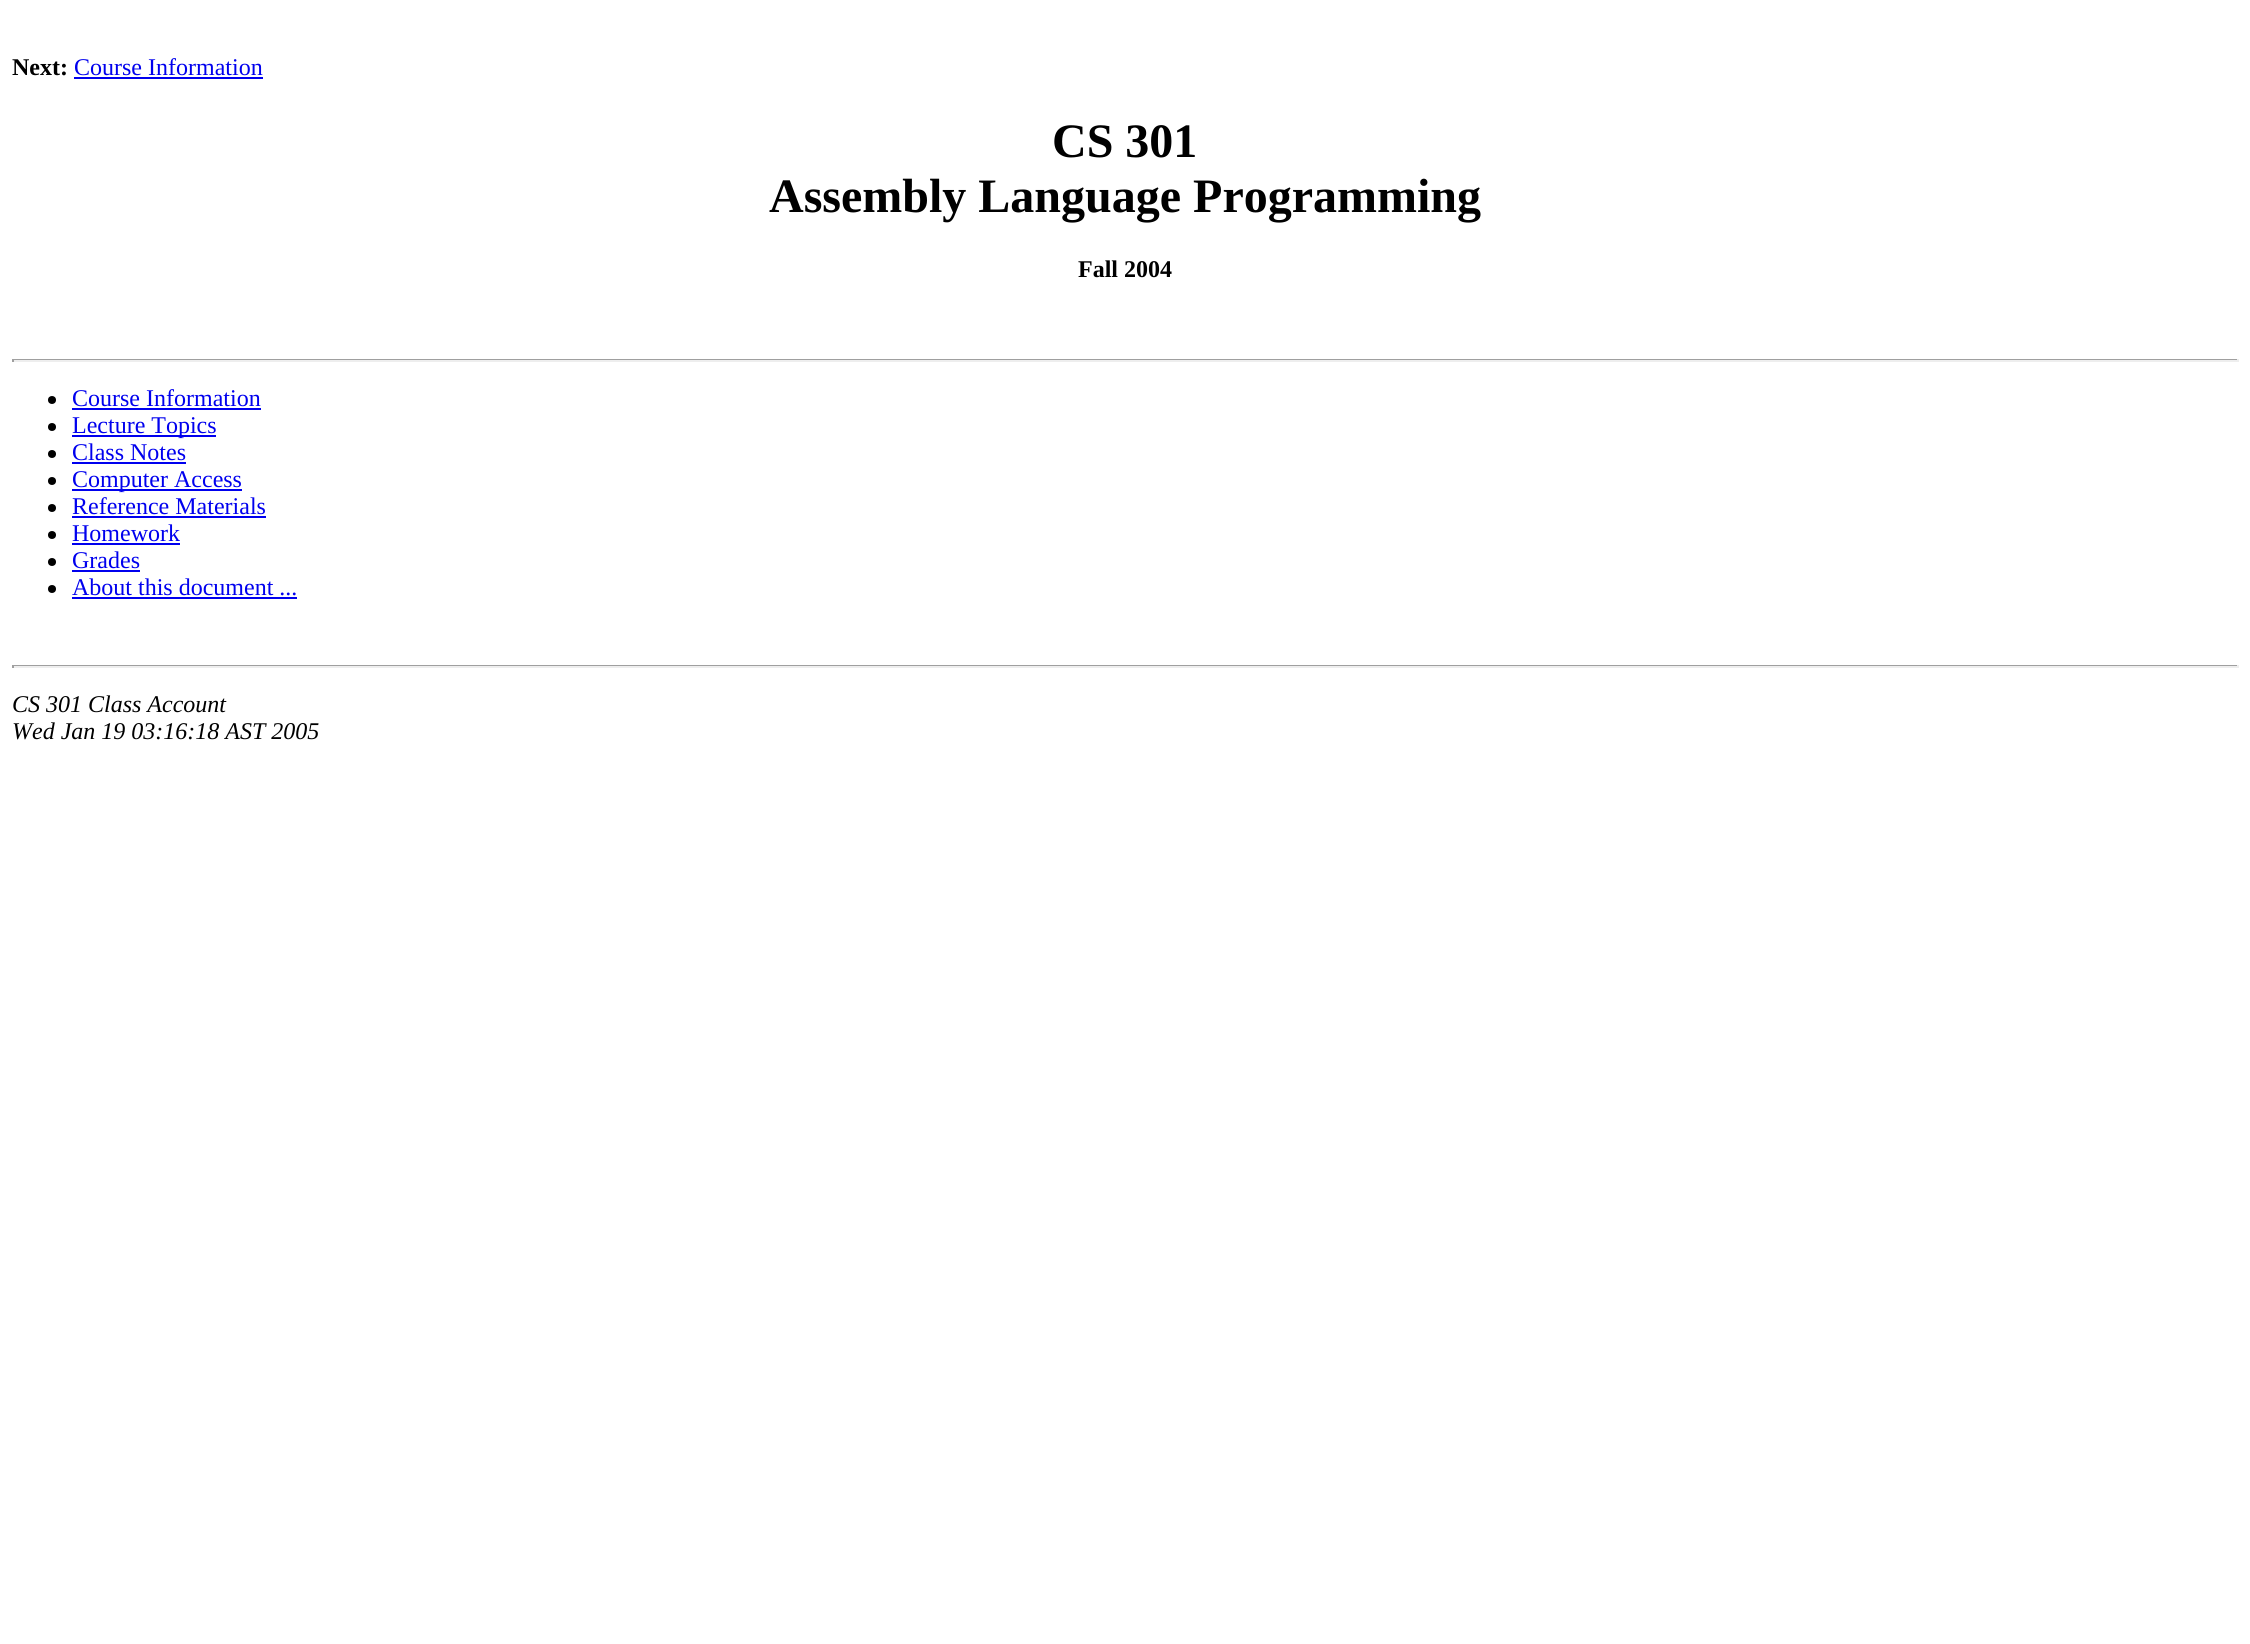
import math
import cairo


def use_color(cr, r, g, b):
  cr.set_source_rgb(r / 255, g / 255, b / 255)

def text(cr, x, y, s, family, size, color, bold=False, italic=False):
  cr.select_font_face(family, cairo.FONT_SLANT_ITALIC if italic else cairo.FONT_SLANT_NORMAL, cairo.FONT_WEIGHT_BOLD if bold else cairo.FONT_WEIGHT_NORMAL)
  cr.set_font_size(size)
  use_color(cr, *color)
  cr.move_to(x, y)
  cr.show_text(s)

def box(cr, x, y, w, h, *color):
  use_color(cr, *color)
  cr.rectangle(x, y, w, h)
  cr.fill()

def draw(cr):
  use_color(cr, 255, 255, 255)
  cr.paint()
  box(cr, 74, 77, 189, 2, 0, 0, 238)
  box(cr, 12, 359, 2226, 1, 159, 159, 159)
  box(cr, 2237, 359, 2, 3, 238, 238, 238)
  box(cr, 12, 360, 2226, 2, 238, 238, 238)
  box(cr, 12, 359, 2, 3, 159, 159, 159)
  use_color(cr, 0, 0, 0)
  cr.arc(52, 400, 4, 0, 2 * math.pi)
  cr.fill()
  box(cr, 72, 408, 189, 2, 0, 0, 238)
  use_color(cr, 0, 0, 0)
  cr.arc(52, 427, 4, 0, 2 * math.pi)
  cr.fill()
  box(cr, 72, 435, 144, 2, 0, 0, 238)
  use_color(cr, 0, 0, 0)
  cr.arc(52, 454, 4, 0, 2 * math.pi)
  cr.fill()
  box(cr, 72, 462, 114, 2, 0, 0, 238)
  use_color(cr, 0, 0, 0)
  cr.arc(52, 481, 4, 0, 2 * math.pi)
  cr.fill()
  box(cr, 72, 489, 170, 2, 0, 0, 238)
  use_color(cr, 0, 0, 0)
  cr.arc(52, 508, 4, 0, 2 * math.pi)
  cr.fill()
  box(cr, 72, 516, 194, 2, 0, 0, 238)
  use_color(cr, 0, 0, 0)
  cr.arc(52, 535, 4, 0, 2 * math.pi)
  cr.fill()
  box(cr, 72, 543, 108, 2, 0, 0, 238)
  use_color(cr, 0, 0, 0)
  cr.arc(52, 562, 4, 0, 2 * math.pi)
  cr.fill()
  box(cr, 72, 570, 68, 2, 0, 0, 238)
  use_color(cr, 0, 0, 0)
  cr.arc(52, 589, 4, 0, 2 * math.pi)
  cr.fill()
  box(cr, 72, 597, 225, 2, 0, 0, 238)
  box(cr, 12, 665, 2226, 1, 159, 159, 159)
  box(cr, 2237, 665, 2, 3, 238, 238, 238)
  box(cr, 12, 666, 2226, 2, 238, 238, 238)
  box(cr, 12, 665, 2, 3, 159, 159, 159)
  text(cr, 12, 75, "Next:", "Liberation Serif", 24, (0, 0, 0), bold=True)
  text(cr, 74, 75, "Course Information", "Liberation Serif", 24, (0, 0, 238))
  text(cr, 1052, 157, "CS 301", "Liberation Serif", 48, (0, 0, 0), bold=True)
  text(cr, 769, 212, "Assembly Language Programming", "Liberation Serif", 48, (0, 0, 0), bold=True)
  text(cr, 1078, 277, "Fall 2004", "Liberation Serif", 24, (0, 0, 0), bold=True)
  text(cr, 72, 406, "Course Information", "Liberation Serif", 24, (0, 0, 238))
  text(cr, 72, 433, "Lecture Topics", "Liberation Serif", 24, (0, 0, 238))
  text(cr, 72, 460, "Class Notes", "Liberation Serif", 24, (0, 0, 238))
  text(cr, 72, 487, "Computer Access", "Liberation Serif", 24, (0, 0, 238))
  text(cr, 72, 514, "Reference Materials", "Liberation Serif", 24, (0, 0, 238))
  text(cr, 72, 541, "Homework", "Liberation Serif", 24, (0, 0, 238))
  text(cr, 72, 568, "Grades", "Liberation Serif", 24, (0, 0, 238))
  text(cr, 72, 595, "About this document ...", "Liberation Serif", 24, (0, 0, 238))
  text(cr, 12, 712, "CS 301 Class Account", "Liberation Serif", 24, (0, 0, 0), italic=True)
  text(cr, 12, 739, "Wed Jan 19 03:16:18 AST 2005", "Liberation Serif", 24, (0, 0, 0), italic=True)


surface = cairo.ImageSurface(cairo.FORMAT_RGB24, 2250, 1644)
cr = cairo.Context(surface)
options = cairo.FontOptions()
options.set_hint_metrics(cairo.HINT_METRICS_OFF)
options.set_hint_style(cairo.HINT_STYLE_NONE)
cr.set_font_options(options)
cr.set_miter_limit(4)
draw(cr)
surface.write_to_png("out.png")
